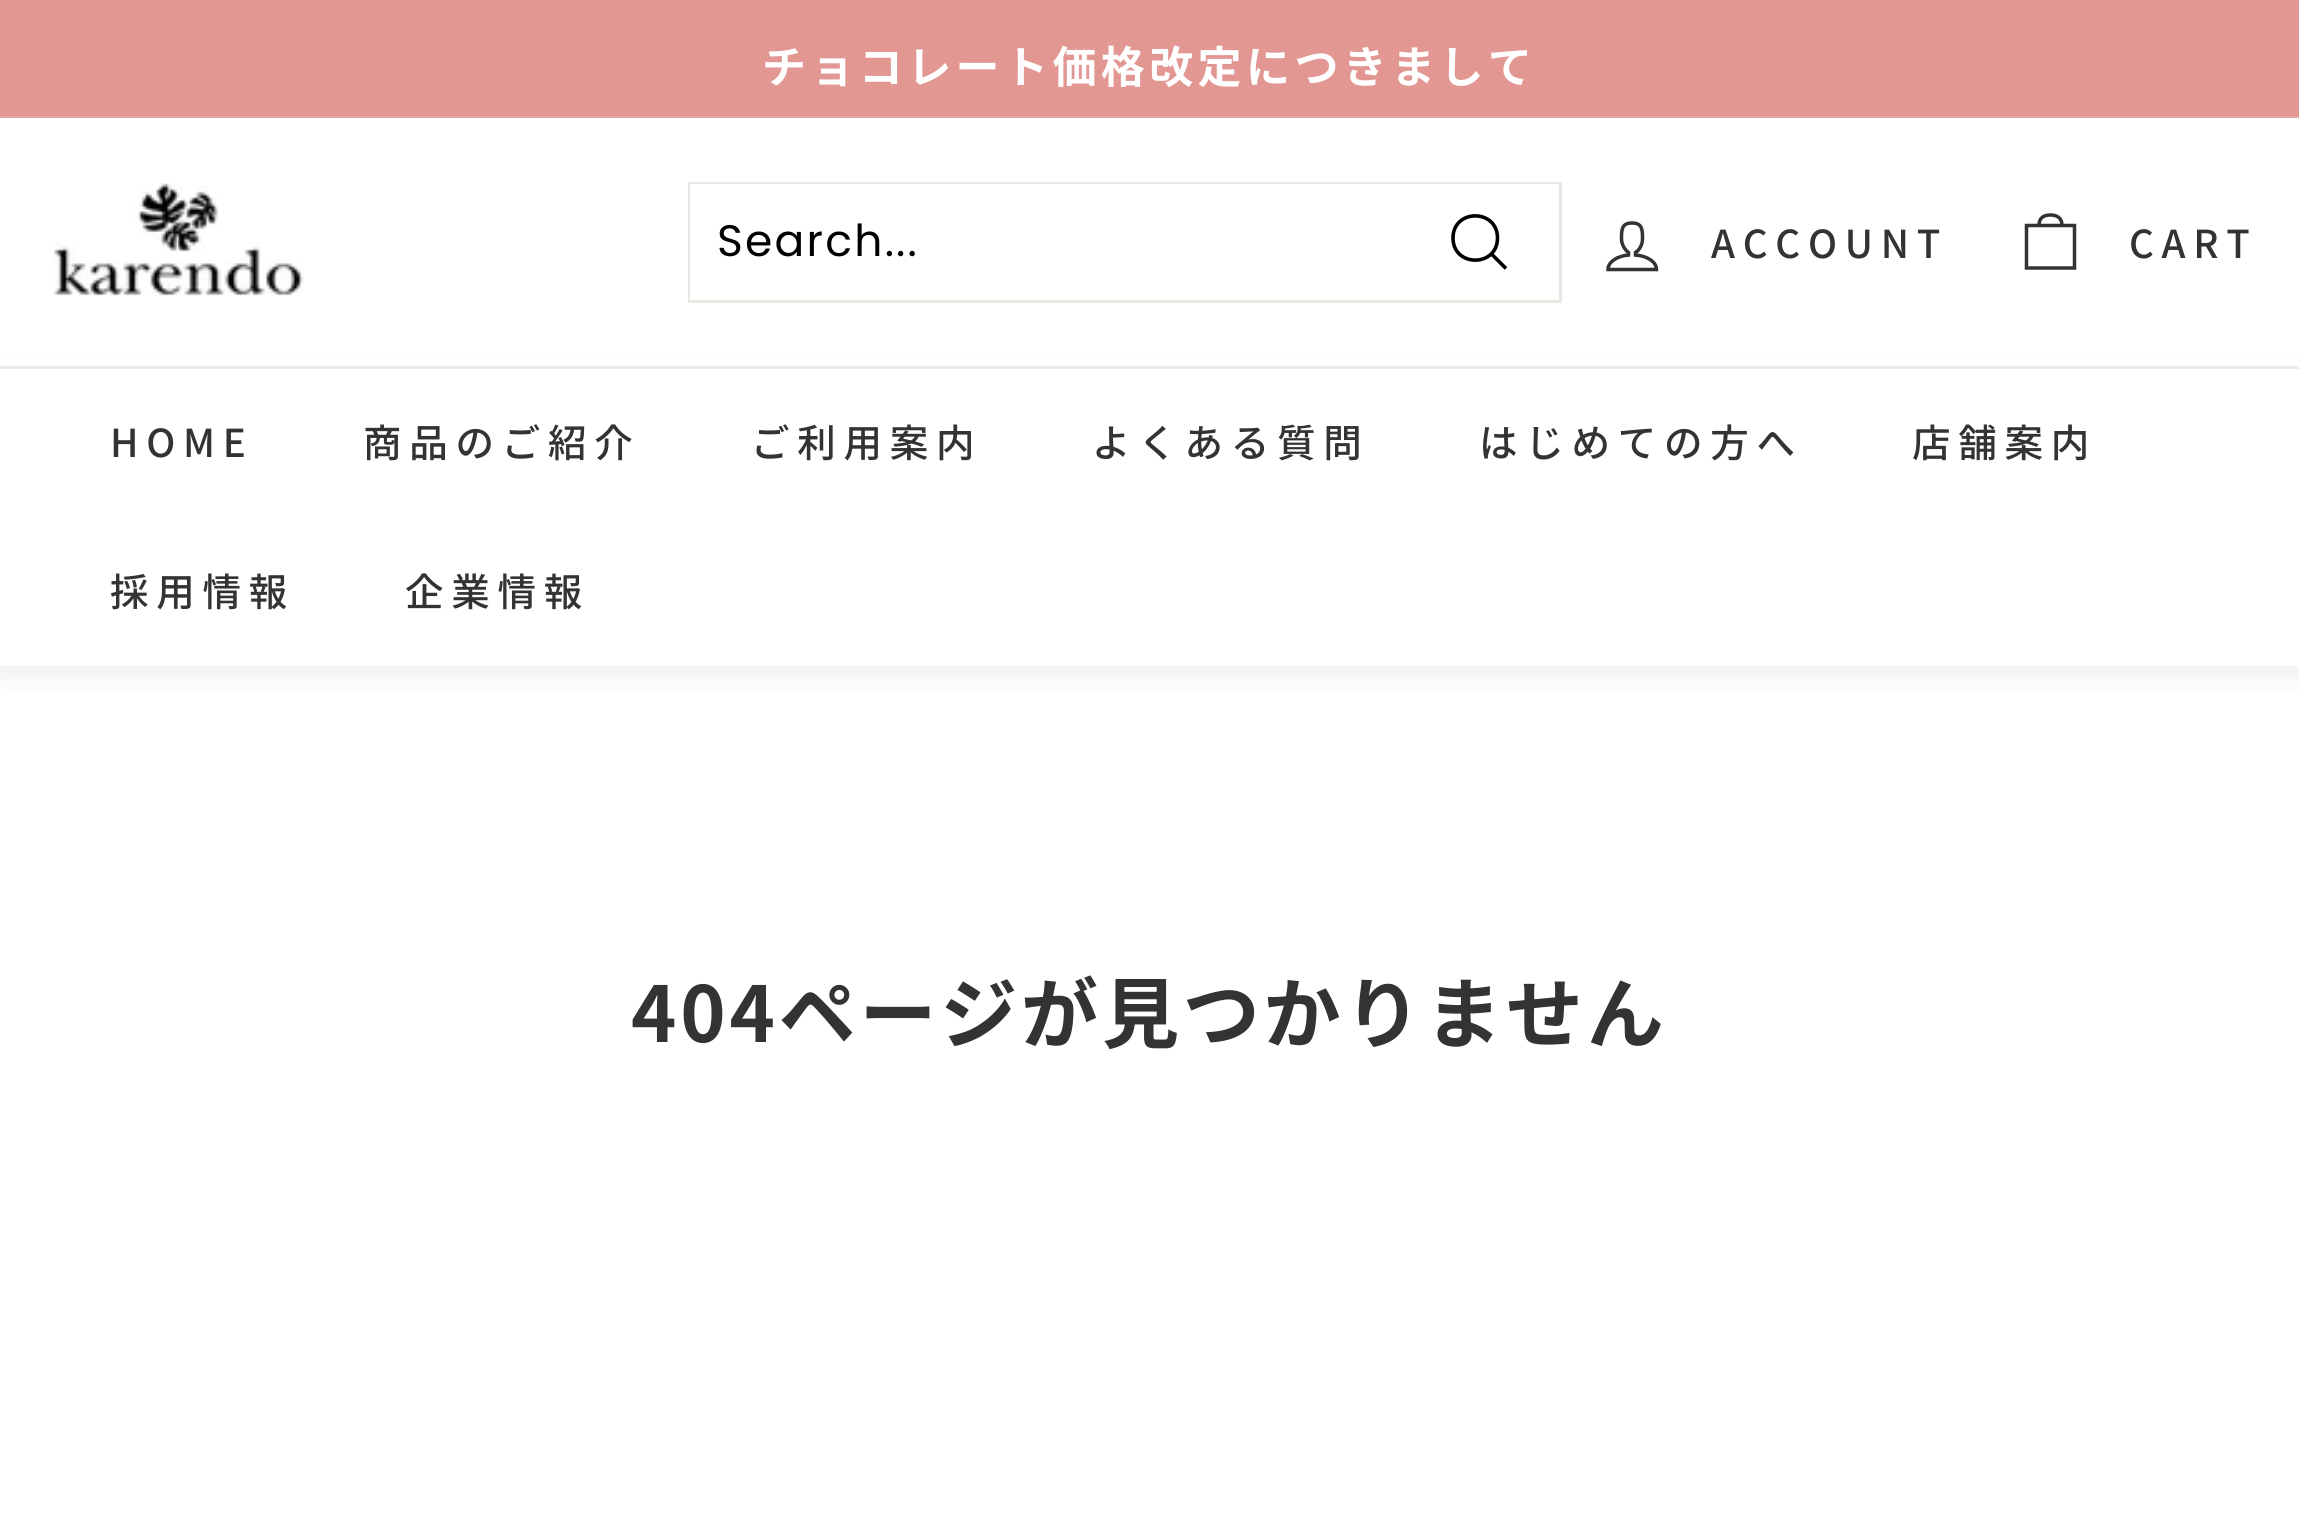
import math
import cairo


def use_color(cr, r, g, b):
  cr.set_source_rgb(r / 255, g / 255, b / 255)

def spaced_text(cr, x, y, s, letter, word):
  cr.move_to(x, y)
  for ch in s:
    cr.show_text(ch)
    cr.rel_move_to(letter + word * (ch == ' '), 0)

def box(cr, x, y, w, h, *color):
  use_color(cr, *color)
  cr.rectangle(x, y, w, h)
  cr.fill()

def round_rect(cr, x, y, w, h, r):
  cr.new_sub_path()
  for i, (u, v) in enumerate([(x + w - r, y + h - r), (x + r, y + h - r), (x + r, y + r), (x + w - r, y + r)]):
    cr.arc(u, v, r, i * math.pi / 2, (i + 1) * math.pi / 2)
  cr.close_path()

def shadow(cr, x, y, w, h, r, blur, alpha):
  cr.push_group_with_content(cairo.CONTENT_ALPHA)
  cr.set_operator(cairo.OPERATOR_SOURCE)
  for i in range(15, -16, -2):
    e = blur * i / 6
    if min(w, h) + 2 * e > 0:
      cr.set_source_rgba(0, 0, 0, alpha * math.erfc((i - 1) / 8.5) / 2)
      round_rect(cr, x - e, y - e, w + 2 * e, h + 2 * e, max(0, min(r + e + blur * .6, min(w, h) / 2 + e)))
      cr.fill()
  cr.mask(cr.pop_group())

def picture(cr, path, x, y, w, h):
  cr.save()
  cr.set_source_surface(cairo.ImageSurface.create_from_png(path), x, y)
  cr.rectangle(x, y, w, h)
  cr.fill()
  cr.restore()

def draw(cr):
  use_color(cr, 255, 255, 255)
  cr.paint()
  box(cr, 0, 0, 2299, 116, 226, 151, 147)
  box(cr, 0, 116, 2299, 2, 230, 167, 163)
  use_color(cr, 142, 142, 142)
  shadow(cr, 0, 374, 2299, 300, 0, 14, 0.16)
  box(cr, 1, 359, 2297, 7, 255, 255, 255)
  picture(cr, "img_01.png", 54, 183, 250, 113)
  cr.rectangle(689.5, 183.5, 871, 118)
  use_color(cr, 232, 232, 225)
  cr.set_line_width(3)
  cr.stroke()
  box(cr, 690, 184, 869, 116, 255, 255, 255)
  cr.new_path()
  cr.move_to(1497.5, 238)
  cr.curve_to(1497.5, 267.5, 1453, 267.5, 1453, 238)
  cr.curve_to(1453, 208.5, 1497.5, 208.5, 1497.5, 238)
  cr.close_path()
  cr.move_to(1506, 268.5)
  cr.line_to(1491.5, 254)
  use_color(cr, 0, 0, 0)
  cr.set_line_width(3.6)
  cr.stroke()
  cr.new_path()
  cr.move_to(1635.5, 255)
  cr.line_to(1635.5, 252.5)
  cr.curve_to(1639.5, 250, 1642.5, 244.5, 1642.5, 239)
  cr.curve_to(1642.5, 230, 1642.5, 223, 1632, 223)
  cr.curve_to(1621.5, 223, 1621.5, 230, 1621.5, 239)
  cr.curve_to(1621.5, 244.5, 1625, 250, 1628.5, 252.5)
  cr.line_to(1628.5, 255)
  cr.curve_to(1617, 256, 1608, 262, 1608, 269.5)
  cr.line_to(1656.5, 269.5)
  cr.curve_to(1656.5, 262, 1647.5, 256, 1635.5, 255)
  cr.close_path()
  use_color(cr, 51, 51, 51)
  cr.set_line_width(3.5)
  cr.stroke()
  cr.new_path()
  cr.move_to(2039, 225.5)
  cr.curve_to(2039, 217.5, 2044, 215, 2050.5, 215)
  cr.curve_to(2056.5, 215, 2062, 217.5, 2062, 225.5)
  cr.move_to(2026.5, 225.5)
  cr.line_to(2074.5, 225.5)
  cr.line_to(2074.5, 268)
  cr.line_to(2026.5, 268)
  cr.close_path()
  cr.stroke()
  box(cr, 0, 369, 2299, 297, 255, 255, 255)
  box(cr, 0, 366, 2299, 3, 235, 235, 235)
  cr.select_font_face("Noto Sans JP", cairo.FONT_SLANT_NORMAL, cairo.FONT_WEIGHT_BOLD)
  cr.set_font_size(44)
  use_color(cr, 255, 255, 255)
  spaced_text(cr, 762, 83, "チョコレート価格改定につきまして", 4.4, 0)
  cr.select_font_face("Poppins")
  use_color(cr, 0, 0, 0)
  spaced_text(cr, 717, 256, "Search...", 2.25, 0)
  cr.select_font_face("Noto Sans JP Medium")
  cr.set_font_size(38.5)
  use_color(cr, 51, 51, 51)
  spaced_text(cr, 1711, 258, "ACCOUNT", 7.75, 0)
  spaced_text(cr, 2129, 258, "CART", 7.75, 0)
  spaced_text(cr, 110, 457, "HOME", 7.75, 0)
  spaced_text(cr, 363, 457, "商品のご紹介", 7.75, 0)
  spaced_text(cr, 751, 457, "ご利用案内", 7.75, 0)
  spaced_text(cr, 1092, 457, "よくある質問", 7.75, 0)
  spaced_text(cr, 1479, 457, "はじめての方へ", 7.75, 0)
  spaced_text(cr, 1912, 457, "店舗案内", 7.75, 0)
  spaced_text(cr, 110, 606, "採用情報", 7.75, 0)
  spaced_text(cr, 405, 606, "企業情報", 7.75, 0)
  cr.select_font_face("Noto Sans JP", cairo.FONT_SLANT_NORMAL, cairo.FONT_WEIGHT_BOLD)
  cr.set_font_size(77)
  spaced_text(cr, 631, 1042, "404ページが見つかりません", 3.8, 0)


surface = cairo.ImageSurface(cairo.FORMAT_RGB24, 2299, 1538)
cr = cairo.Context(surface)
options = cairo.FontOptions()
options.set_hint_metrics(cairo.HINT_METRICS_OFF)
options.set_hint_style(cairo.HINT_STYLE_NONE)
cr.set_font_options(options)
cr.set_miter_limit(4)
draw(cr)
surface.write_to_png("out.png")
